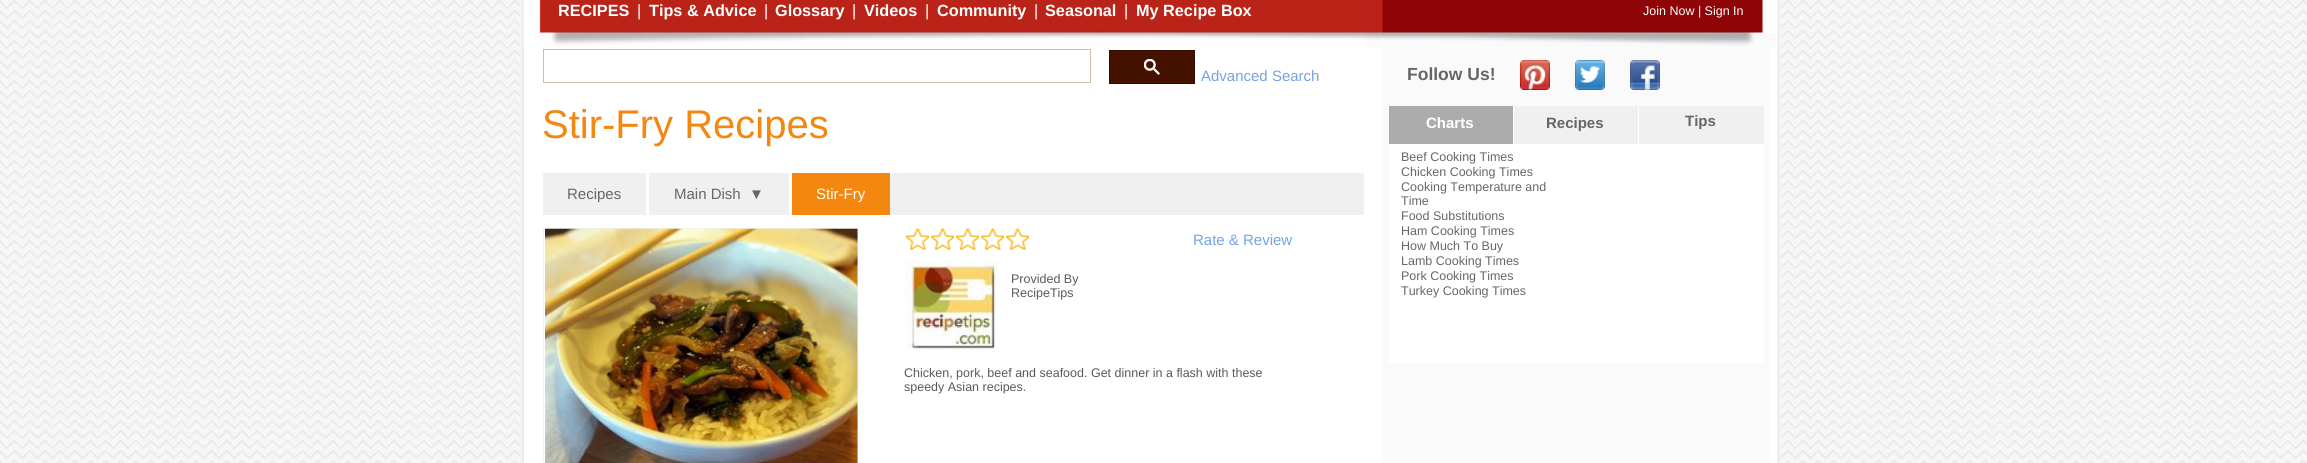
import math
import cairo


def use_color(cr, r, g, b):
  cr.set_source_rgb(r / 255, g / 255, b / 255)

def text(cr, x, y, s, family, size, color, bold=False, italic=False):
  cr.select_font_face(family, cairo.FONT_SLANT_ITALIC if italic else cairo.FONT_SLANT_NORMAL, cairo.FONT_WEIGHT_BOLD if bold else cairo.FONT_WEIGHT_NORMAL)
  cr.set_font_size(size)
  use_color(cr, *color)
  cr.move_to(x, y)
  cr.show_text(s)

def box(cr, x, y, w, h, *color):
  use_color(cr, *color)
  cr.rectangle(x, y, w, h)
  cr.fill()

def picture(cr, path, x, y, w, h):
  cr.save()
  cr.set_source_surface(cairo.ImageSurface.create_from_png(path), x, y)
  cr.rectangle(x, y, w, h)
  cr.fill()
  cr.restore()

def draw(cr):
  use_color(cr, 255, 255, 255)
  cr.paint()
  picture(cr, "img_01.png", 0, 0, 2307, 463)
  box(cr, 525, 0, 1253, 463, 255, 255, 255)
  picture(cr, "img_02.png", 520, 0, 5, 463)
  picture(cr, "img_03.png", 1777, 0, 4, 463)
  picture(cr, "img_04.png", 523, 0, 1255, 48)
  box(cr, 524, 48, 1, 415, 255, 255, 255)
  cr.rectangle(543.5, 49.5, 547, 33)
  use_color(cr, 211, 188, 161)
  cr.set_line_width(1)
  cr.stroke()
  use_color(cr, 70, 18, 0)
  cr.rectangle(1109.5, 50.5, 85, 33)
  cr.fill_preserve()
  use_color(cr, 48, 13, 0)
  cr.stroke()
  picture(cr, "img_05.png", 1144, 59, 16, 16)
  box(cr, 543, 173, 821, 42, 240, 240, 240)
  box(cr, 646, 173, 3, 42, 255, 255, 255)
  box(cr, 789, 173, 3, 42, 255, 255, 255)
  box(cr, 792, 173, 98, 42, 244, 135, 16)
  cr.rectangle(543.5, 228.5, 314, 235)
  use_color(cr, 239, 239, 239)
  cr.stroke()
  picture(cr, "img_06.png", 545, 228, 313, 235)
  picture(cr, "img_07.png", 906, 228, 124, 22)
  picture(cr, "img_08.png", 905, 258, 94, 94)
  box(cr, 1383, 48, 387, 415, 250, 250, 250)
  picture(cr, "img_09.png", 1520, 60, 30, 30)
  picture(cr, "img_10.png", 1575, 60, 30, 30)
  picture(cr, "img_11.png", 1630, 60, 30, 30)
  box(cr, 1514, 106, 250, 38, 240, 240, 240)
  box(cr, 1389, 106, 124, 38, 172, 172, 172)
  box(cr, 1513, 106, 1, 38, 255, 255, 255)
  box(cr, 1638, 106, 1, 38, 255, 255, 255)
  box(cr, 1389, 144, 375, 219, 255, 255, 255)
  text(cr, 558, 16, "RECIPES", "Liberation Sans", 16.25, (255, 255, 255), bold=True)
  text(cr, 637, 16, "|", "Liberation Sans", 16.25, (255, 255, 255))
  text(cr, 649, 16, "Tips & Advice", "Liberation Sans", 16.25, (255, 255, 255), bold=True)
  text(cr, 764, 16, "|", "Liberation Sans", 16.25, (255, 255, 255))
  text(cr, 775, 16, "Glossary", "Liberation Sans", 16.25, (255, 255, 255), bold=True)
  text(cr, 852, 16, "|", "Liberation Sans", 16.25, (255, 255, 255))
  text(cr, 864, 16, "Videos", "Liberation Sans", 16.25, (255, 255, 255), bold=True)
  text(cr, 925, 16, "|", "Liberation Sans", 16.25, (255, 255, 255))
  text(cr, 937, 16, "Community", "Liberation Sans", 16.25, (255, 255, 255), bold=True)
  text(cr, 1034, 16, "|", "Liberation Sans", 16.25, (255, 255, 255))
  text(cr, 1045, 16, "Seasonal", "Liberation Sans", 16.25, (255, 255, 255), bold=True)
  text(cr, 1124, 16, "|", "Liberation Sans", 16.25, (255, 255, 255))
  text(cr, 1136, 16, "My Recipe Box", "Liberation Sans", 16.25, (255, 255, 255), bold=True)
  text(cr, 1643, 15, "Join Now | Sign In", "Liberation Sans", 12.5, (255, 255, 255))
  text(cr, 1201, 81, "Advanced Search", "Liberation Sans", 15, (118, 162, 226))
  text(cr, 542, 138, "Stir-Fry Recipes", "Liberation Sans", 40, (244, 135, 16))
  text(cr, 567, 199, "Recipes", "Liberation Sans", 15, (102, 102, 102))
  text(cr, 674, 199, "Main Dish  ▼", "Liberation Sans", 15, (102, 102, 102))
  text(cr, 816, 199, "Stir-Fry", "Liberation Sans", 15, (255, 255, 255))
  text(cr, 1193, 245, "Rate & Review", "Liberation Sans", 15, (118, 162, 226))
  text(cr, 1011, 283, "Provided By", "Liberation Sans", 12.5, (88, 89, 91))
  text(cr, 1011, 297, "RecipeTips", "Liberation Sans", 12.5, (88, 89, 91))
  text(cr, 904, 377, "Chicken, pork, beef and seafood. Get dinner in a flash with these", "Liberation Sans", 12.5, (88, 89, 91))
  text(cr, 904, 391, "speedy Asian recipes.", "Liberation Sans", 12.5, (88, 89, 91))
  text(cr, 1407, 80, "Follow Us!", "Liberation Sans", 17.5, (102, 102, 102), bold=True)
  text(cr, 1426, 128, "Charts", "Liberation Sans", 15, (255, 255, 255), bold=True)
  text(cr, 1546, 128, "Recipes", "Liberation Sans", 15, (102, 102, 102), bold=True)
  text(cr, 1685, 126, "Tips", "Liberation Sans", 15, (102, 102, 102), bold=True)
  text(cr, 1401, 161, "Beef Cooking Times", "Liberation Sans", 12.5, (102, 102, 102))
  text(cr, 1401, 176, "Chicken Cooking Times", "Liberation Sans", 12.5, (102, 102, 102))
  text(cr, 1401, 191, "Cooking Temperature and", "Liberation Sans", 12.5, (102, 102, 102))
  text(cr, 1401, 205, "Time", "Liberation Sans", 12.5, (102, 102, 102))
  text(cr, 1401, 220, "Food Substitutions", "Liberation Sans", 12.5, (102, 102, 102))
  text(cr, 1401, 235, "Ham Cooking Times", "Liberation Sans", 12.5, (102, 102, 102))
  text(cr, 1401, 250, "How Much To Buy", "Liberation Sans", 12.5, (102, 102, 102))
  text(cr, 1401, 265, "Lamb Cooking Times", "Liberation Sans", 12.5, (102, 102, 102))
  text(cr, 1401, 280, "Pork Cooking Times", "Liberation Sans", 12.5, (102, 102, 102))
  text(cr, 1401, 295, "Turkey Cooking Times", "Liberation Sans", 12.5, (102, 102, 102))


surface = cairo.ImageSurface(cairo.FORMAT_RGB24, 2307, 463)
cr = cairo.Context(surface)
options = cairo.FontOptions()
options.set_hint_metrics(cairo.HINT_METRICS_OFF)
options.set_hint_style(cairo.HINT_STYLE_NONE)
cr.set_font_options(options)
cr.set_miter_limit(4)
draw(cr)
surface.write_to_png("out.png")
